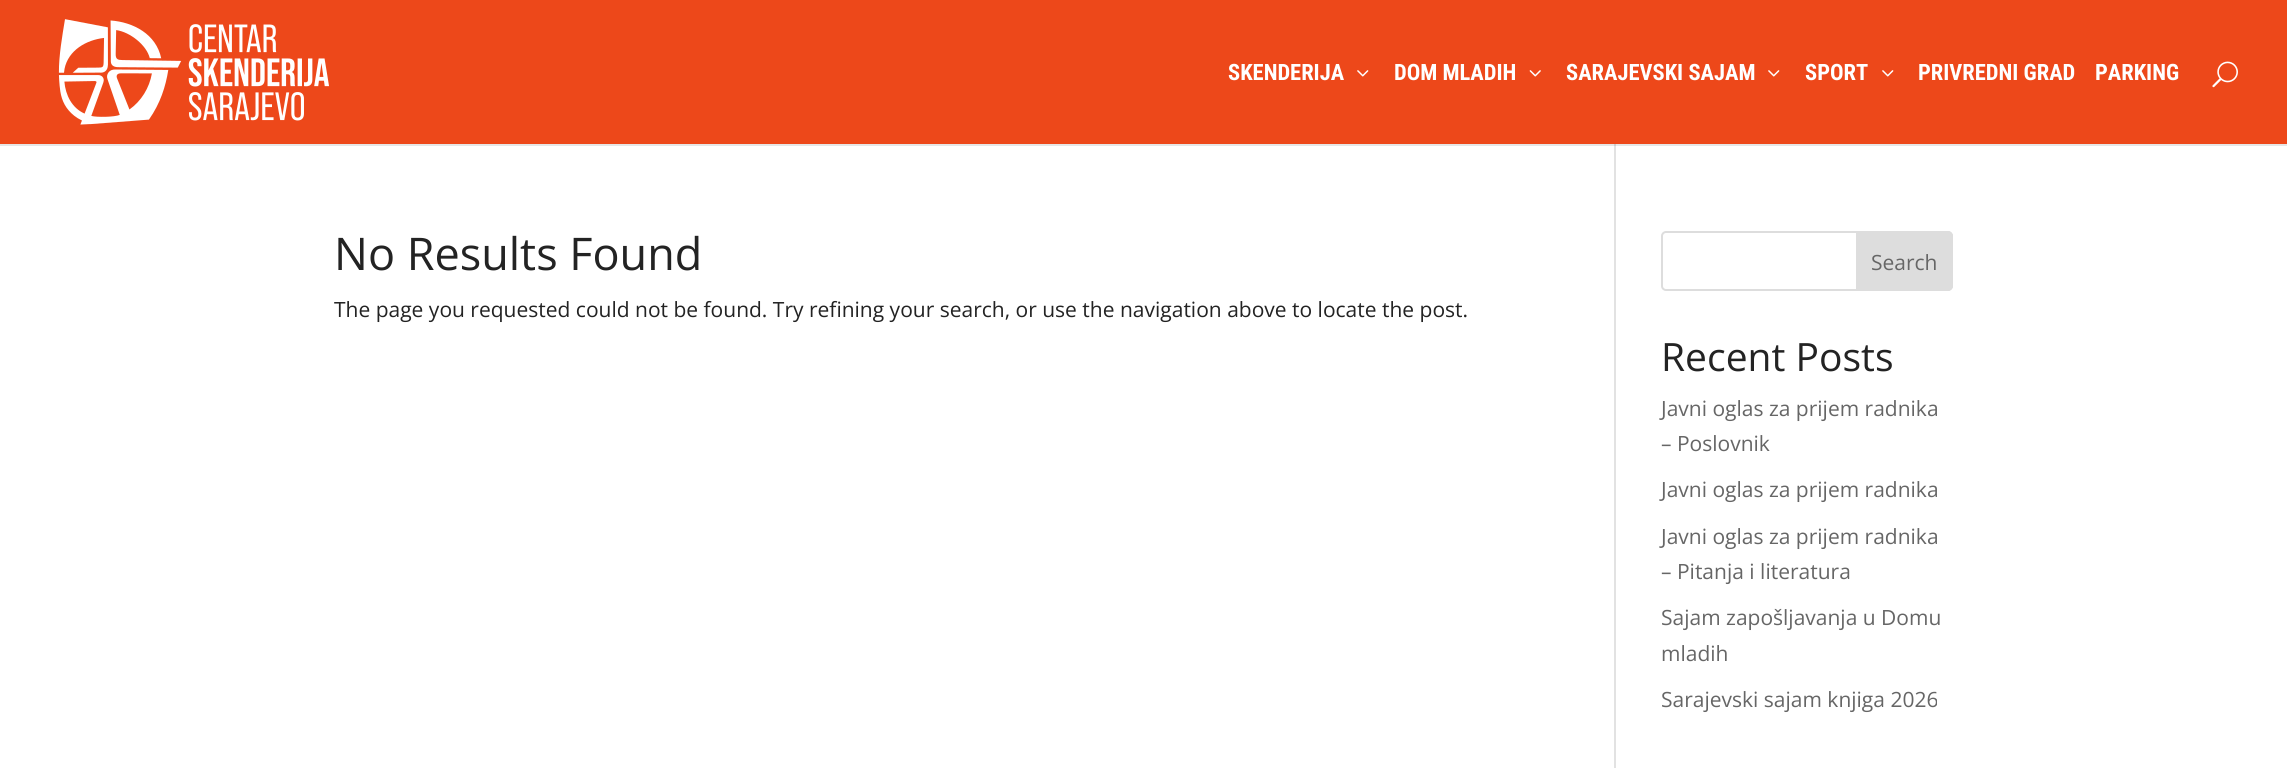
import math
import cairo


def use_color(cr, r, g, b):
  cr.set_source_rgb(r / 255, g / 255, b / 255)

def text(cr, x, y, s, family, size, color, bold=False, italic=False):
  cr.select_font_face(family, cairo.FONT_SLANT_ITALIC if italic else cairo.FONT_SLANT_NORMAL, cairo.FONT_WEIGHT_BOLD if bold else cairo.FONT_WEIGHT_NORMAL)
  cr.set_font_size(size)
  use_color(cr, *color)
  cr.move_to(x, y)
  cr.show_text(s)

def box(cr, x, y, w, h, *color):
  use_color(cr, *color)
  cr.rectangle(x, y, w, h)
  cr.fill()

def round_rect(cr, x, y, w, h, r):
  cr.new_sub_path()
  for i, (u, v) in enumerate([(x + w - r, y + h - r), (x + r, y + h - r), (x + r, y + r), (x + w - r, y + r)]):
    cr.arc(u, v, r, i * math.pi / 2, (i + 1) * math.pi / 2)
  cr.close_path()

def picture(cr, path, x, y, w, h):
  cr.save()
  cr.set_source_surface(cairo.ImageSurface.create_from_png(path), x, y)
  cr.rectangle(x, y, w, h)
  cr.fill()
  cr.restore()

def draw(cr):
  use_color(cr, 237, 72, 26)
  cr.paint()
  box(cr, 0, 144, 2287, 624, 255, 255, 255)
  box(cr, 1614, 144, 2, 624, 226, 226, 226)
  cr.set_source_rgba(0, 0, 0, 0.1)
  cr.new_path()
  cr.move_to(0, 144)
  cr.line_to(0, 146)
  cr.line_to(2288, 146)
  cr.line_to(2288, 2)
  cr.line_to(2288, 144)
  cr.close_path()
  cr.fill()
  picture(cr, "img_01.png", 58, 19, 271, 106)
  picture(cr, "img_02.png", 1357, 70, 12, 7)
  picture(cr, "img_03.png", 1529, 70, 12, 7)
  picture(cr, "img_02.png", 1768, 70, 12, 7)
  picture(cr, "img_02.png", 1882, 70, 12, 7)
  picture(cr, "img_04.png", 2212, 61, 26, 27)
  round_rect(cr, 1662, 232, 290, 58, 4)
  use_color(cr, 221, 221, 221)
  cr.stroke()
  cr.new_path()
  cr.move_to(1857, 232)
  cr.line_to(1948, 232)
  cr.curve_to(1950, 232, 1952, 234, 1952, 236)
  cr.line_to(1952, 286)
  cr.curve_to(1952, 288, 1950, 290, 1948, 290)
  cr.line_to(1857, 290)
  cr.close_path()
  cr.fill_preserve()
  cr.stroke()
  text(cr, 1228, 80, "SKENDERIJA", "Roboto Condensed", 22.5, (255, 255, 255), bold=True)
  text(cr, 1394, 80, "DOM MLADIH", "Roboto Condensed", 22.5, (255, 255, 255), bold=True)
  text(cr, 1566, 80, "SARAJEVSKI SAJAM", "Roboto Condensed", 22.5, (255, 255, 255), bold=True)
  text(cr, 1805, 80, "SPORT", "Roboto Condensed", 22.5, (255, 255, 255), bold=True)
  text(cr, 1918, 80, "PRIVREDNI GRAD", "Roboto Condensed", 22.5, (255, 255, 255), bold=True)
  text(cr, 2095, 80, "PARKING", "Roboto Condensed", 22.5, (255, 255, 255), bold=True)
  text(cr, 334, 270, "No Results Found", "Open Sans", 45, (35, 35, 35))
  text(cr, 334, 317, "The page you requested could not be found. Try refining your search, or use the navigation above to locate the post.", "Open Sans", 21, (35, 35, 35))
  text(cr, 1871, 270, "Search", "Open Sans", 21, (102, 102, 102))
  text(cr, 1661, 371, "Recent Posts", "Open Sans", 39, (35, 35, 35))
  text(cr, 1661, 416, "Javni oglas za prijem radnika", "Open Sans", 21, (102, 102, 102))
  text(cr, 1661, 451, "– Poslovnik", "Open Sans", 21, (102, 102, 102))
  text(cr, 1661, 497, "Javni oglas za prijem radnika", "Open Sans", 21, (102, 102, 102))
  text(cr, 1661, 544, "Javni oglas za prijem radnika", "Open Sans", 21, (102, 102, 102))
  text(cr, 1661, 579, "– Pitanja i literatura", "Open Sans", 21, (102, 102, 102))
  text(cr, 1661, 625, "Sajam zapošljavanja u Domu", "Open Sans", 21, (102, 102, 102))
  text(cr, 1661, 661, "mladih", "Open Sans", 21, (102, 102, 102))
  text(cr, 1661, 707, "Sarajevski sajam knjiga 2026", "Open Sans", 21, (102, 102, 102))


surface = cairo.ImageSurface(cairo.FORMAT_RGB24, 2287, 768)
cr = cairo.Context(surface)
options = cairo.FontOptions()
options.set_hint_metrics(cairo.HINT_METRICS_OFF)
options.set_hint_style(cairo.HINT_STYLE_NONE)
cr.set_font_options(options)
cr.set_miter_limit(4)
draw(cr)
surface.write_to_png("out.png")
